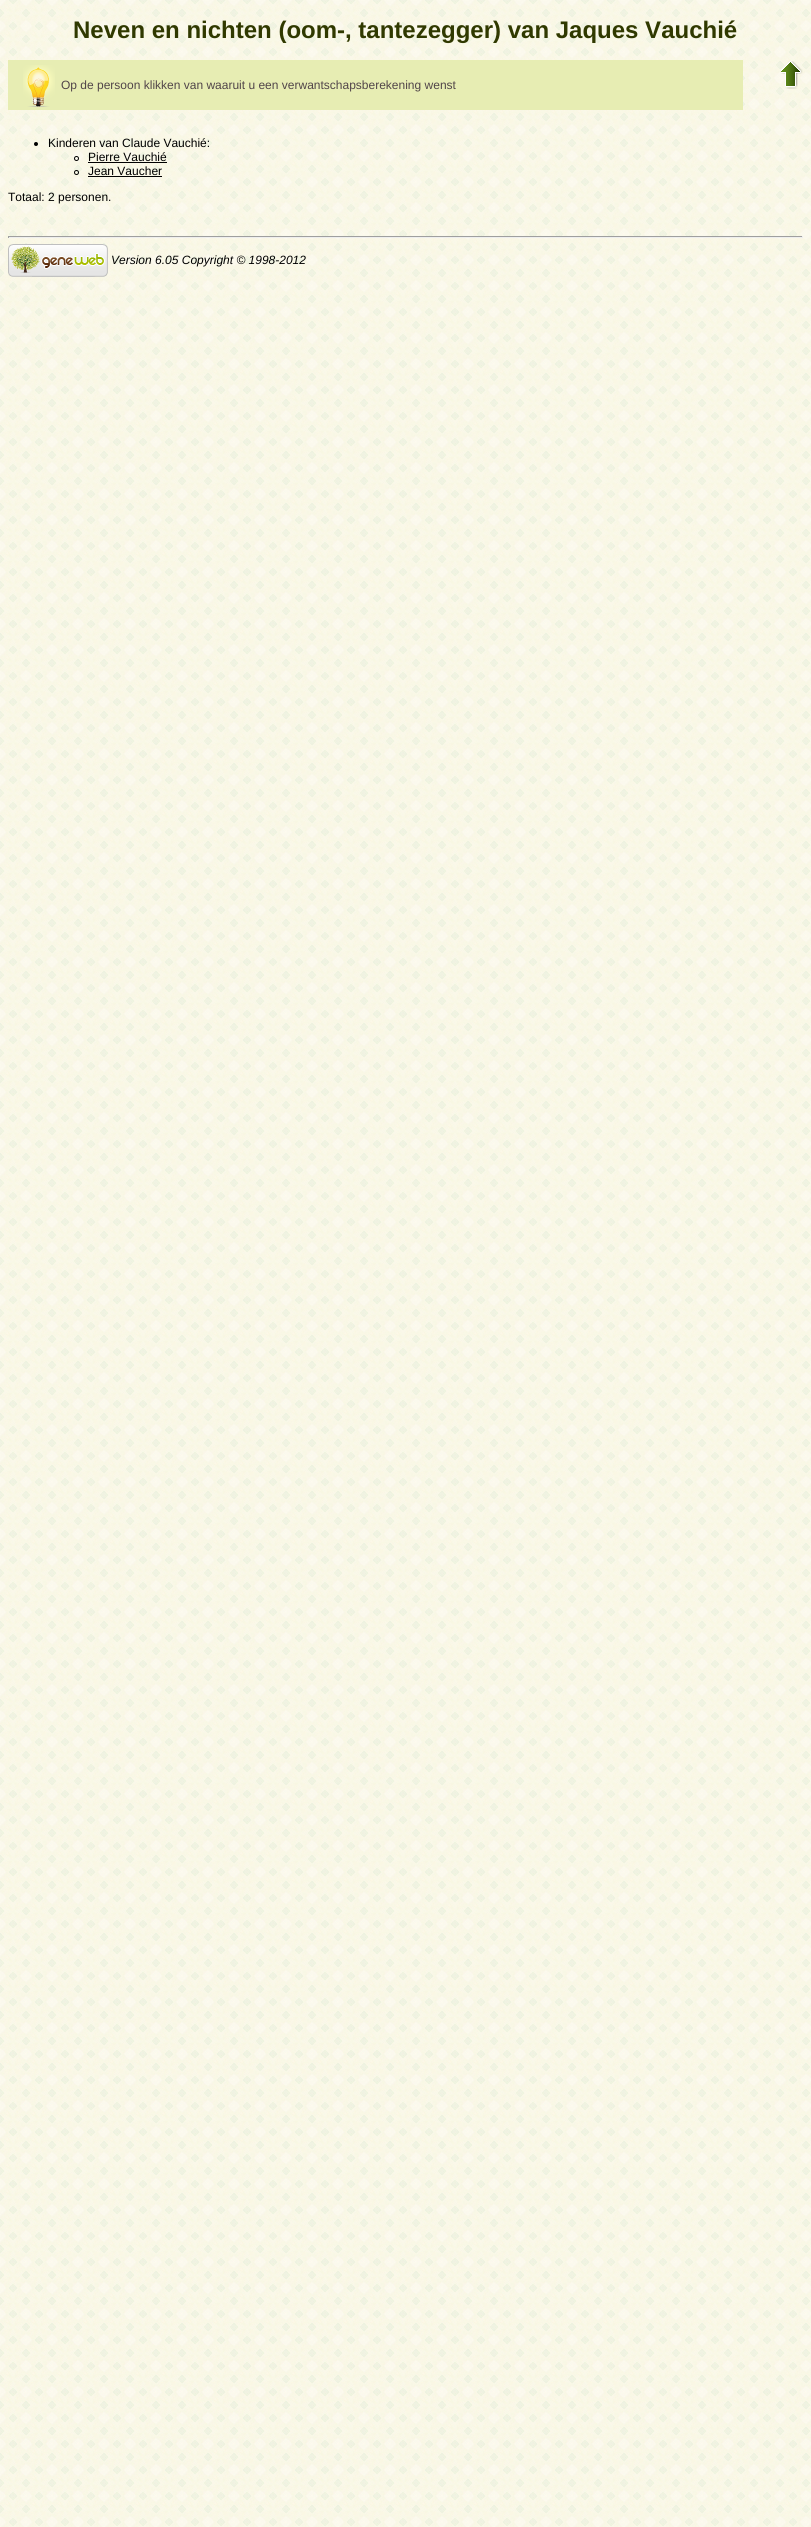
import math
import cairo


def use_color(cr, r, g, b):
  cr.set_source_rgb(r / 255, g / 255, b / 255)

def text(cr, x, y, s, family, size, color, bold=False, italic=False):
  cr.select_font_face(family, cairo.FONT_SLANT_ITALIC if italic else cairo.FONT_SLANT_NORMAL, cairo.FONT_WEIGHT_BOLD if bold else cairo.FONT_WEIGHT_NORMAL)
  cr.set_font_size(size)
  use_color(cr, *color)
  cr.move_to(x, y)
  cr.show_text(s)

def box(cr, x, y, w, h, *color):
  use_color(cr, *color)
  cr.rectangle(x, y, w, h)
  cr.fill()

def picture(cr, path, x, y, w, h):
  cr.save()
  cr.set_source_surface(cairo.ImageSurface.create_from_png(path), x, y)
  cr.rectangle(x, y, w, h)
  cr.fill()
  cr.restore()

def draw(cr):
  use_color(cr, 255, 255, 255)
  cr.paint()
  picture(cr, "img_01.png", 0, 0, 811, 2527)
  box(cr, 8, 60, 735, 50, 231, 237, 179)
  picture(cr, "img_02.png", 23, 65, 32, 42)
  picture(cr, "img_03.png", 781, 61, 22, 28)
  use_color(cr, 0, 0, 0)
  cr.arc(36, 144, 2, 0, 2 * math.pi)
  cr.fill()
  cr.arc(76.5, 158.5, 2, 0, 2 * math.pi)
  cr.set_line_width(1)
  cr.stroke()
  box(cr, 88, 162, 79, 1, 0, 0, 0)
  cr.arc(76.5, 172.5, 2, 0, 2 * math.pi)
  cr.stroke()
  box(cr, 88, 176, 74, 1, 0, 0, 0)
  box(cr, 8, 236, 795, 1, 159, 159, 159)
  box(cr, 802, 236, 1, 2, 238, 238, 238)
  box(cr, 8, 237, 795, 1, 238, 238, 238)
  box(cr, 8, 236, 1, 2, 159, 159, 159)
  picture(cr, "img_04.png", 8, 244, 100, 33)
  text(cr, 73, 38, "Neven en nichten (oom-, tantezegger) van Jaques Vauchié", "Liberation Sans", 24, (48, 57, 0), bold=True)
  text(cr, 61, 89, "Op de persoon klikken van waaruit u een verwantschapsberekening wenst", "Liberation Sans", 12, (81, 69, 73))
  text(cr, 48, 147, "Kinderen van Claude Vauchié:", "Liberation Sans", 12, (0, 0, 0))
  text(cr, 88, 161, "Pierre Vauchié", "Liberation Sans", 12, (0, 0, 0))
  text(cr, 88, 175, "Jean Vaucher", "Liberation Sans", 12, (0, 0, 0))
  text(cr, 8, 201, "Totaal: 2 personen.", "Liberation Sans", 12, (0, 0, 0))
  text(cr, 111, 264, "Version 6.05 Copyright © 1998-2012", "Liberation Sans", 12, (0, 0, 0), italic=True)


surface = cairo.ImageSurface(cairo.FORMAT_RGB24, 811, 2527)
cr = cairo.Context(surface)
options = cairo.FontOptions()
options.set_hint_metrics(cairo.HINT_METRICS_OFF)
options.set_hint_style(cairo.HINT_STYLE_NONE)
cr.set_font_options(options)
cr.set_miter_limit(4)
draw(cr)
surface.write_to_png("out.png")
